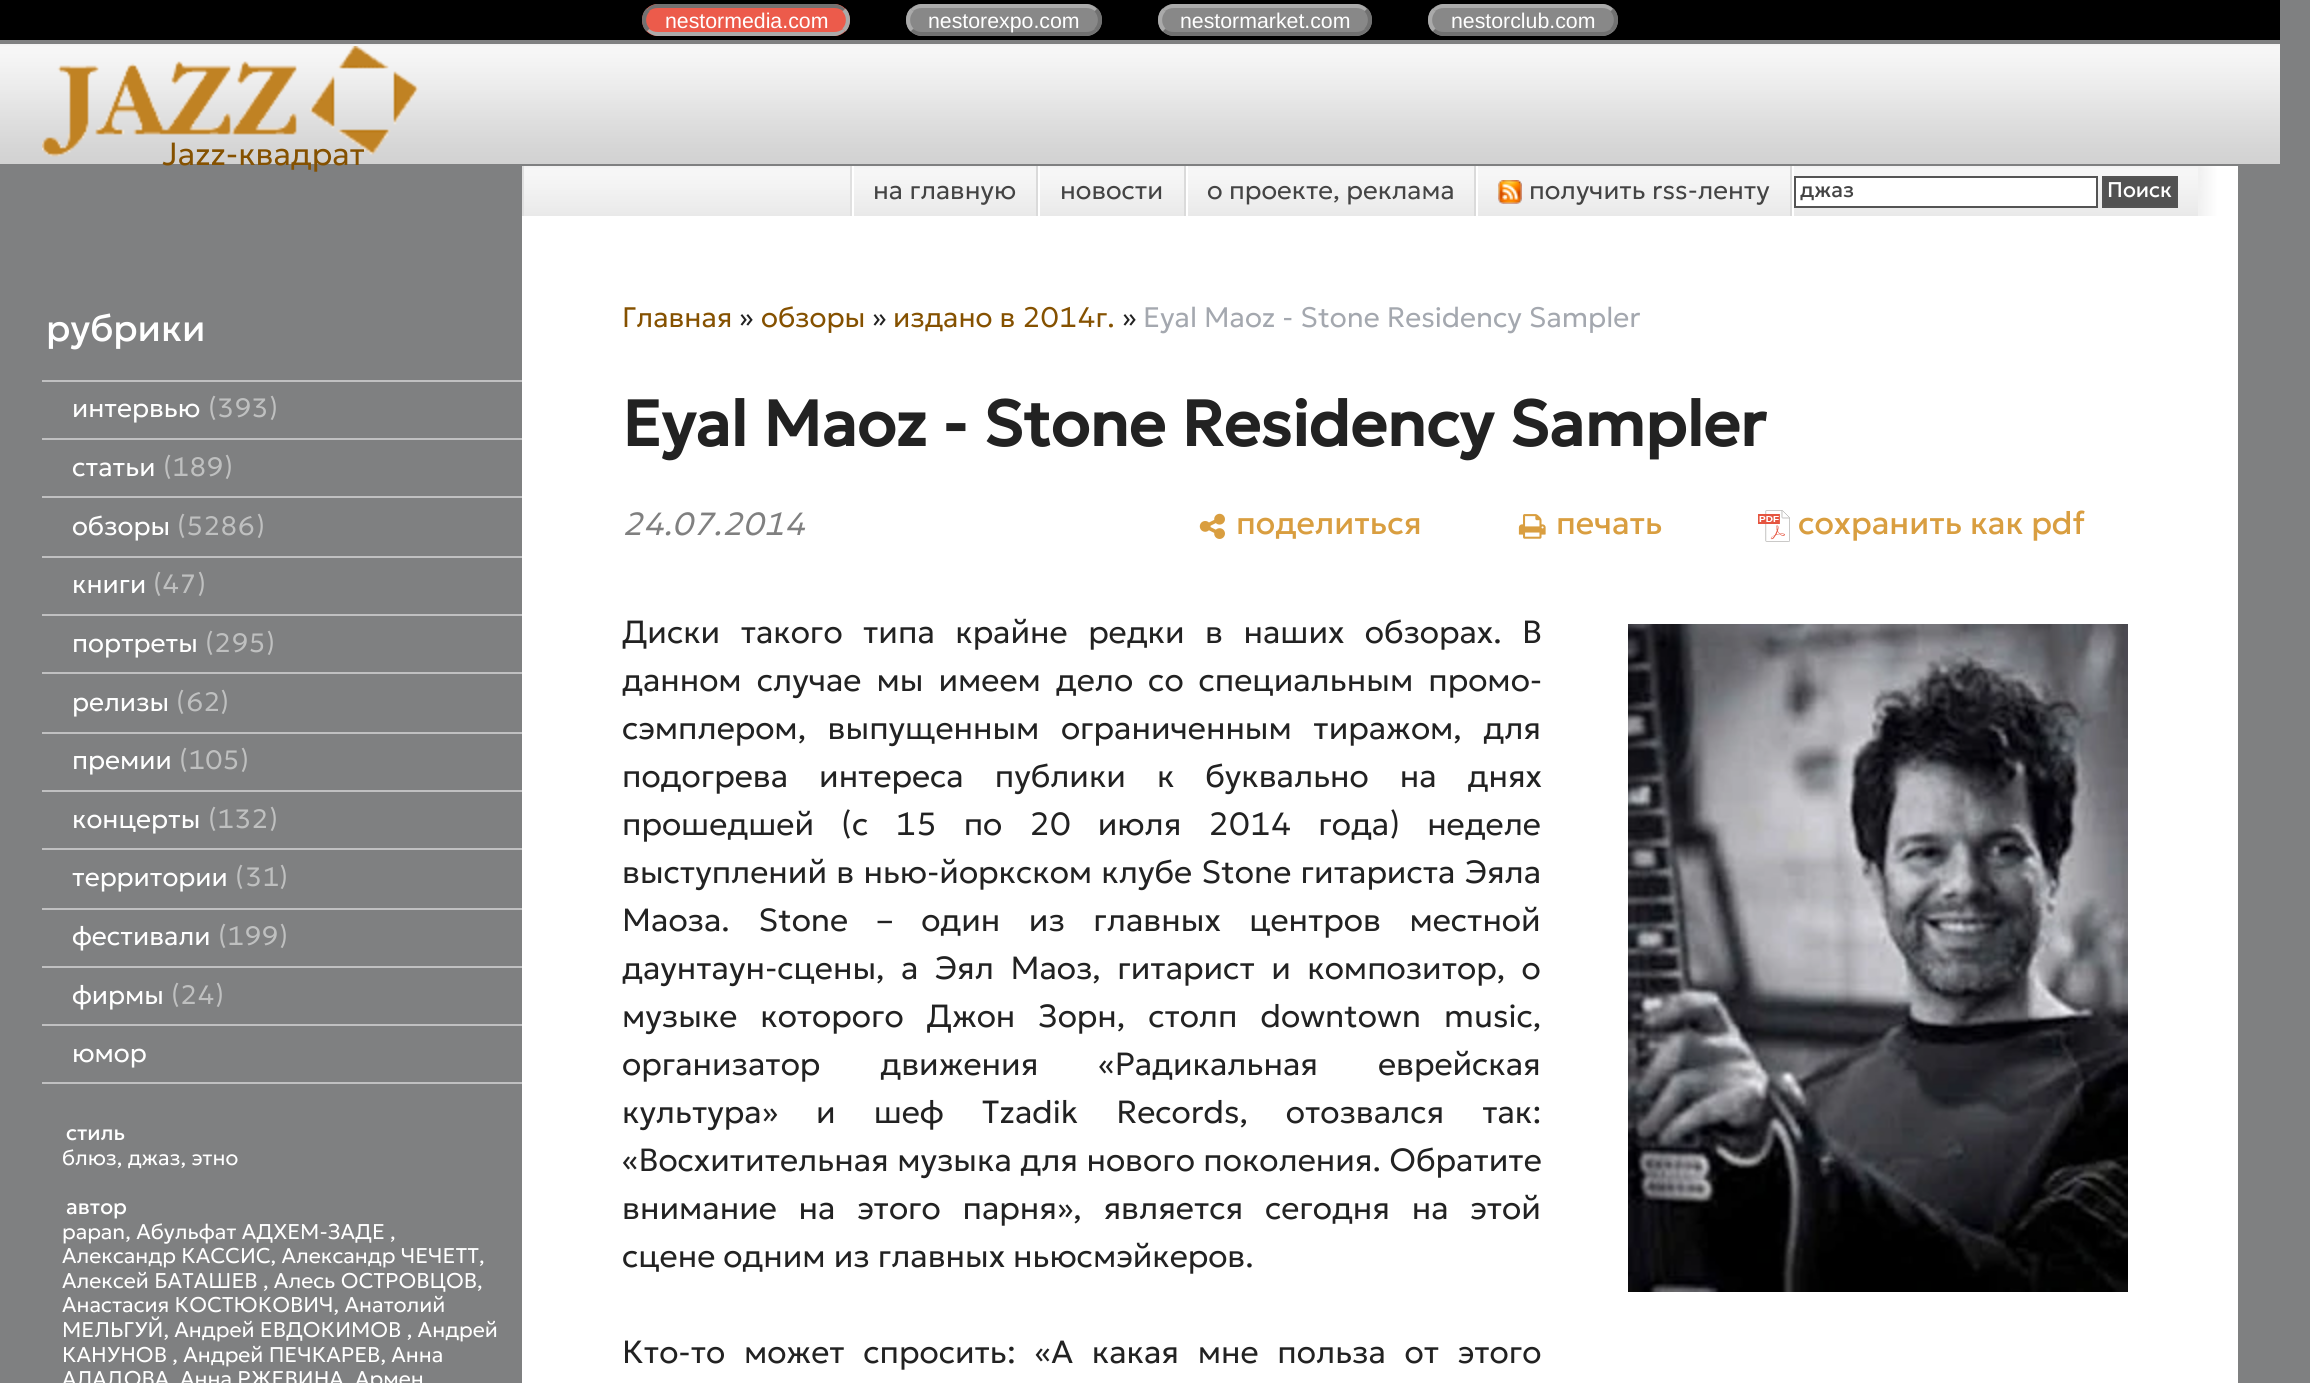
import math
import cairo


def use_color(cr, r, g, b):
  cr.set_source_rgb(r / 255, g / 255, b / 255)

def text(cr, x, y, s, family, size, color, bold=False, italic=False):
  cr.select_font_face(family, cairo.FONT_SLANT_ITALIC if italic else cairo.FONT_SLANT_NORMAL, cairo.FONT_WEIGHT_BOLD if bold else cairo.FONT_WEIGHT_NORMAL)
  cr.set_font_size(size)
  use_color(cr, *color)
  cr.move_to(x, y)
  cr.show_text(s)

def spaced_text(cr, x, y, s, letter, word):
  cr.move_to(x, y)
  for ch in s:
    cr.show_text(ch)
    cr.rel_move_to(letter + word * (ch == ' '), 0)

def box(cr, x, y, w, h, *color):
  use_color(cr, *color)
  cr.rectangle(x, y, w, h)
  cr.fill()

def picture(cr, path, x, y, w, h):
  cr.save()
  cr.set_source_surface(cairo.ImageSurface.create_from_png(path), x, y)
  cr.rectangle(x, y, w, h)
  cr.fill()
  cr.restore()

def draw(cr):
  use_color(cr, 127, 128, 129)
  cr.paint()
  box(cr, 0, 0, 2280, 40, 0, 0, 0)
  use_color(cr, 236, 91, 75)
  cr.new_path()
  cr.move_to(658, 4)
  cr.line_to(724, 4)
  cr.line_to(724, 36)
  cr.line_to(658, 36)
  cr.curve_to(649, 36, 642, 29, 642, 20)
  cr.curve_to(642, 11, 649, 4, 658, 4)
  cr.close_path()
  cr.fill()
  use_color(cr, 113, 113, 113)
  cr.new_path()
  cr.move_to(658, 4)
  cr.curve_to(654, 4, 650, 6, 647, 9)
  cr.line_to(649, 11)
  cr.curve_to(652, 9, 654, 8, 658, 8)
  cr.line_to(724, 8)
  cr.line_to(724, 4)
  cr.close_path()
  cr.fill()
  use_color(cr, 170, 170, 170)
  cr.new_path()
  cr.move_to(724, 36)
  cr.line_to(724, 32)
  cr.line_to(658, 32)
  cr.curve_to(654, 32, 652, 31, 649, 29)
  cr.line_to(647, 31)
  cr.curve_to(650, 34, 654, 36, 658, 36)
  cr.close_path()
  cr.fill()
  use_color(cr, 113, 113, 113)
  cr.new_path()
  cr.move_to(646.5, 31.5)
  cr.curve_to(640.5, 25.5, 640.5, 14.5, 646.5, 8.5)
  cr.line_to(649.5, 11.5)
  cr.curve_to(645, 16, 645, 24, 649.5, 28.5)
  cr.close_path()
  cr.fill()
  box(cr, 724, 8, 58, 24, 236, 91, 75)
  box(cr, 724, 4, 58, 4, 113, 113, 113)
  box(cr, 724, 32, 58, 4, 170, 170, 170)
  use_color(cr, 236, 91, 75)
  cr.new_path()
  cr.move_to(782, 4)
  cr.line_to(834, 4)
  cr.curve_to(843, 4, 850, 11, 850, 20)
  cr.curve_to(850, 29, 843, 36, 834, 36)
  cr.line_to(782, 36)
  cr.close_path()
  cr.fill()
  use_color(cr, 113, 113, 113)
  cr.new_path()
  cr.move_to(782, 4)
  cr.line_to(782, 8)
  cr.line_to(834, 8)
  cr.curve_to(838, 8, 840, 9, 843, 11)
  cr.line_to(845, 9)
  cr.curve_to(842, 6, 838, 4, 834, 4)
  cr.close_path()
  cr.fill()
  use_color(cr, 170, 170, 170)
  cr.new_path()
  cr.move_to(842.5, 28.5)
  cr.curve_to(847, 24, 847, 16, 842.5, 11.5)
  cr.line_to(845.5, 8.5)
  cr.curve_to(851.5, 14.5, 851.5, 25.5, 845.5, 31.5)
  cr.close_path()
  cr.fill()
  cr.new_path()
  cr.move_to(782, 32)
  cr.line_to(782, 36)
  cr.line_to(834, 36)
  cr.curve_to(838, 36, 842, 34, 845, 31)
  cr.line_to(843, 29)
  cr.curve_to(840, 31, 838, 32, 834, 32)
  cr.close_path()
  cr.fill()
  use_color(cr, 136, 136, 136)
  cr.new_path()
  cr.move_to(922, 4)
  cr.line_to(988, 4)
  cr.line_to(988, 36)
  cr.line_to(922, 36)
  cr.curve_to(913, 36, 906, 29, 906, 20)
  cr.curve_to(906, 11, 913, 4, 922, 4)
  cr.close_path()
  cr.fill()
  use_color(cr, 170, 170, 170)
  cr.new_path()
  cr.move_to(922, 4)
  cr.curve_to(918, 4, 914, 6, 911, 9)
  cr.line_to(913, 11)
  cr.curve_to(916, 9, 918, 8, 922, 8)
  cr.line_to(988, 8)
  cr.line_to(988, 4)
  cr.close_path()
  cr.fill()
  use_color(cr, 113, 113, 113)
  cr.new_path()
  cr.move_to(988, 36)
  cr.line_to(988, 32)
  cr.line_to(922, 32)
  cr.curve_to(918, 32, 916, 31, 913, 29)
  cr.line_to(911, 31)
  cr.curve_to(914, 34, 918, 36, 922, 36)
  cr.close_path()
  cr.fill()
  use_color(cr, 170, 170, 170)
  cr.new_path()
  cr.move_to(910.5, 31.5)
  cr.curve_to(904.5, 25.5, 904.5, 14.5, 910.5, 8.5)
  cr.line_to(913.5, 11.5)
  cr.curve_to(909, 16, 909, 24, 913.5, 28.5)
  cr.close_path()
  cr.fill()
  box(cr, 988, 8, 46, 24, 136, 136, 136)
  box(cr, 988, 4, 46, 4, 170, 170, 170)
  box(cr, 988, 32, 46, 4, 113, 113, 113)
  use_color(cr, 136, 136, 136)
  cr.new_path()
  cr.move_to(1034, 4)
  cr.line_to(1086, 4)
  cr.curve_to(1095, 4, 1102, 11, 1102, 20)
  cr.curve_to(1102, 29, 1095, 36, 1086, 36)
  cr.line_to(1034, 36)
  cr.close_path()
  cr.fill()
  use_color(cr, 170, 170, 170)
  cr.new_path()
  cr.move_to(1034, 4)
  cr.line_to(1034, 8)
  cr.line_to(1086, 8)
  cr.curve_to(1090, 8, 1092, 9, 1095, 11)
  cr.line_to(1097, 9)
  cr.curve_to(1094, 6, 1090, 4, 1086, 4)
  cr.close_path()
  cr.fill()
  use_color(cr, 113, 113, 113)
  cr.new_path()
  cr.move_to(1094.5, 28.5)
  cr.curve_to(1099, 24, 1099, 16, 1094.5, 11.5)
  cr.line_to(1097.5, 8.5)
  cr.curve_to(1103.5, 14.5, 1103.5, 25.5, 1097.5, 31.5)
  cr.close_path()
  cr.fill()
  cr.new_path()
  cr.move_to(1034, 32)
  cr.line_to(1034, 36)
  cr.line_to(1086, 36)
  cr.curve_to(1090, 36, 1094, 34, 1097, 31)
  cr.line_to(1095, 29)
  cr.curve_to(1092, 31, 1090, 32, 1086, 32)
  cr.close_path()
  cr.fill()
  use_color(cr, 136, 136, 136)
  cr.new_path()
  cr.move_to(1174, 4)
  cr.line_to(1240, 4)
  cr.line_to(1240, 36)
  cr.line_to(1174, 36)
  cr.curve_to(1165, 36, 1158, 29, 1158, 20)
  cr.curve_to(1158, 11, 1165, 4, 1174, 4)
  cr.close_path()
  cr.fill()
  use_color(cr, 170, 170, 170)
  cr.new_path()
  cr.move_to(1174, 4)
  cr.curve_to(1170, 4, 1166, 6, 1163, 9)
  cr.line_to(1165, 11)
  cr.curve_to(1168, 9, 1170, 8, 1174, 8)
  cr.line_to(1240, 8)
  cr.line_to(1240, 4)
  cr.close_path()
  cr.fill()
  use_color(cr, 113, 113, 113)
  cr.new_path()
  cr.move_to(1240, 36)
  cr.line_to(1240, 32)
  cr.line_to(1174, 32)
  cr.curve_to(1170, 32, 1168, 31, 1165, 29)
  cr.line_to(1163, 31)
  cr.curve_to(1166, 34, 1170, 36, 1174, 36)
  cr.close_path()
  cr.fill()
  use_color(cr, 170, 170, 170)
  cr.new_path()
  cr.move_to(1162.5, 31.5)
  cr.curve_to(1156.5, 25.5, 1156.5, 14.5, 1162.5, 8.5)
  cr.line_to(1165.5, 11.5)
  cr.curve_to(1161, 16, 1161, 24, 1165.5, 28.5)
  cr.close_path()
  cr.fill()
  box(cr, 1240, 8, 64, 24, 136, 136, 136)
  box(cr, 1240, 4, 64, 4, 170, 170, 170)
  box(cr, 1240, 32, 64, 4, 113, 113, 113)
  use_color(cr, 136, 136, 136)
  cr.new_path()
  cr.move_to(1304, 4)
  cr.line_to(1356, 4)
  cr.curve_to(1365, 4, 1372, 11, 1372, 20)
  cr.curve_to(1372, 29, 1365, 36, 1356, 36)
  cr.line_to(1304, 36)
  cr.close_path()
  cr.fill()
  use_color(cr, 170, 170, 170)
  cr.new_path()
  cr.move_to(1304, 4)
  cr.line_to(1304, 8)
  cr.line_to(1356, 8)
  cr.curve_to(1360, 8, 1362, 9, 1365, 11)
  cr.line_to(1367, 9)
  cr.curve_to(1364, 6, 1360, 4, 1356, 4)
  cr.close_path()
  cr.fill()
  use_color(cr, 113, 113, 113)
  cr.new_path()
  cr.move_to(1364.5, 28.5)
  cr.curve_to(1369, 24, 1369, 16, 1364.5, 11.5)
  cr.line_to(1367.5, 8.5)
  cr.curve_to(1373.5, 14.5, 1373.5, 25.5, 1367.5, 31.5)
  cr.close_path()
  cr.fill()
  cr.new_path()
  cr.move_to(1304, 32)
  cr.line_to(1304, 36)
  cr.line_to(1356, 36)
  cr.curve_to(1360, 36, 1364, 34, 1367, 31)
  cr.line_to(1365, 29)
  cr.curve_to(1362, 31, 1360, 32, 1356, 32)
  cr.close_path()
  cr.fill()
  use_color(cr, 136, 136, 136)
  cr.new_path()
  cr.move_to(1444, 4)
  cr.line_to(1510, 4)
  cr.line_to(1510, 36)
  cr.line_to(1444, 36)
  cr.curve_to(1435, 36, 1428, 29, 1428, 20)
  cr.curve_to(1428, 11, 1435, 4, 1444, 4)
  cr.close_path()
  cr.fill()
  use_color(cr, 170, 170, 170)
  cr.new_path()
  cr.move_to(1444, 4)
  cr.curve_to(1440, 4, 1436, 6, 1433, 9)
  cr.line_to(1435, 11)
  cr.curve_to(1438, 9, 1440, 8, 1444, 8)
  cr.line_to(1510, 8)
  cr.line_to(1510, 4)
  cr.close_path()
  cr.fill()
  use_color(cr, 113, 113, 113)
  cr.new_path()
  cr.move_to(1510, 36)
  cr.line_to(1510, 32)
  cr.line_to(1444, 32)
  cr.curve_to(1440, 32, 1438, 31, 1435, 29)
  cr.line_to(1433, 31)
  cr.curve_to(1436, 34, 1440, 36, 1444, 36)
  cr.close_path()
  cr.fill()
  use_color(cr, 170, 170, 170)
  cr.new_path()
  cr.move_to(1432.5, 31.5)
  cr.curve_to(1426.5, 25.5, 1426.5, 14.5, 1432.5, 8.5)
  cr.line_to(1435.5, 11.5)
  cr.curve_to(1431, 16, 1431, 24, 1435.5, 28.5)
  cr.close_path()
  cr.fill()
  box(cr, 1510, 8, 38, 24, 136, 136, 136)
  box(cr, 1510, 4, 38, 4, 170, 170, 170)
  box(cr, 1510, 32, 38, 4, 113, 113, 113)
  use_color(cr, 136, 136, 136)
  cr.new_path()
  cr.move_to(1548, 4)
  cr.line_to(1602, 4)
  cr.curve_to(1611, 4, 1618, 11, 1618, 20)
  cr.curve_to(1618, 29, 1611, 36, 1602, 36)
  cr.line_to(1548, 36)
  cr.close_path()
  cr.fill()
  use_color(cr, 170, 170, 170)
  cr.new_path()
  cr.move_to(1548, 4)
  cr.line_to(1548, 8)
  cr.line_to(1602, 8)
  cr.curve_to(1606, 8, 1608, 9, 1611, 11)
  cr.line_to(1613, 9)
  cr.curve_to(1610, 6, 1606, 4, 1602, 4)
  cr.close_path()
  cr.fill()
  use_color(cr, 113, 113, 113)
  cr.new_path()
  cr.move_to(1610.5, 28.5)
  cr.curve_to(1615, 24, 1615, 16, 1610.5, 11.5)
  cr.line_to(1613.5, 8.5)
  cr.curve_to(1619.5, 14.5, 1619.5, 25.5, 1613.5, 31.5)
  cr.close_path()
  cr.fill()
  cr.new_path()
  cr.move_to(1548, 32)
  cr.line_to(1548, 36)
  cr.line_to(1602, 36)
  cr.curve_to(1606, 36, 1610, 34, 1613, 31)
  cr.line_to(1611, 29)
  cr.curve_to(1608, 31, 1606, 32, 1602, 32)
  cr.close_path()
  cr.fill()
  picture(cr, "img_01.png", 0, 44, 40, 120)
  picture(cr, "img_02.png", 40, 44, 2200, 120)
  picture(cr, "img_03.png", 42, 46, 377, 111)
  picture(cr, "img_01.png", 2240, 44, 40, 120)
  box(cr, 522, 216, 1716, 60, 255, 255, 255)
  picture(cr, "img_04.png", 524, 166, 1674, 50)
  box(cr, 522, 166, 2, 50, 224, 224, 224)
  box(cr, 1792, 166, 2, 50, 255, 255, 255)
  box(cr, 850, 166, 2, 50, 224, 224, 224)
  box(cr, 1036, 166, 2, 50, 218, 218, 218)
  box(cr, 852, 166, 2, 50, 255, 255, 255)
  box(cr, 1184, 166, 2, 50, 218, 218, 218)
  box(cr, 1038, 166, 2, 50, 255, 255, 255)
  box(cr, 1474, 166, 2, 50, 218, 218, 218)
  box(cr, 1186, 166, 2, 50, 255, 255, 255)
  box(cr, 1790, 166, 2, 50, 218, 218, 218)
  box(cr, 1476, 166, 2, 50, 255, 255, 255)
  picture(cr, "img_05.png", 1498, 180, 24, 24)
  picture(cr, "img_06.png", 2198, 166, 40, 50)
  cr.rectangle(1795, 177, 302, 30)
  cr.fill_preserve()
  use_color(cr, 84, 84, 84)
  cr.stroke()
  use_color(cr, 82, 82, 82)
  cr.rectangle(2103, 177, 74, 30)
  cr.fill_preserve()
  use_color(cr, 84, 84, 84)
  cr.stroke()
  box(cr, 42, 380, 482, 2, 192, 192, 193)
  box(cr, 42, 438, 482, 2, 192, 192, 193)
  box(cr, 42, 496, 482, 2, 192, 192, 193)
  box(cr, 42, 556, 482, 2, 192, 192, 193)
  box(cr, 42, 614, 482, 2, 192, 192, 193)
  box(cr, 42, 672, 482, 2, 192, 192, 193)
  box(cr, 42, 732, 482, 2, 192, 192, 193)
  box(cr, 42, 790, 482, 2, 192, 192, 193)
  box(cr, 42, 848, 482, 2, 192, 192, 193)
  box(cr, 42, 908, 482, 2, 192, 192, 193)
  box(cr, 42, 966, 482, 2, 192, 192, 193)
  box(cr, 42, 1024, 482, 2, 192, 192, 193)
  box(cr, 42, 1082, 482, 2, 192, 192, 193)
  box(cr, 522, 276, 1716, 1107, 255, 255, 255)
  picture(cr, "img_07.png", 1199, 513, 26, 26)
  picture(cr, "img_08.png", 1518, 514, 28, 25)
  picture(cr, "img_09.png", 1758, 510, 32, 32)
  picture(cr, "img_10.png", 1628, 624, 500, 668)
  text(cr, 665, 28, "nestormedia.com", "Liberation Sans", 21.3, (255, 255, 255))
  text(cr, 928, 28, "nestorexpo.com", "Liberation Sans", 21.3, (255, 255, 255))
  text(cr, 1180, 28, "nestormarket.com", "Liberation Sans", 21.3, (255, 255, 255))
  text(cr, 1451, 28, "nestorclub.com", "Liberation Sans", 21.3, (255, 255, 255))
  text(cr, 162, 165, "Jazz-квадрат", "Geologica Light", 32, (133, 81, 0))
  text(cr, 873, 199, "на главную", "Geologica Light", 26, (68, 68, 68))
  text(cr, 1060, 199, "новости", "Geologica Light", 26, (68, 68, 68))
  text(cr, 1207, 199, "о проекте, реклама", "Geologica Light", 26, (68, 68, 68))
  text(cr, 1529, 199, "получить rss-ленту", "Geologica Light", 26, (68, 68, 68))
  text(cr, 1800, 197, "джаз", "Geologica", 21.3, (68, 68, 68))
  text(cr, 2107, 197, "Поиск", "Geologica", 21.3, (255, 255, 255))
  text(cr, 46, 341, "рубрики", "Geologica", 37.5, (255, 255, 255))
  text(cr, 72, 417, "интервью", "Geologica Light", 26.5, (255, 255, 255))
  text(cr, 208, 417, "(", "Geologica Light", 26.5, (191, 192, 192))
  text(cr, 217, 417, "393", "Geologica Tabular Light", 26.5, (191, 192, 192))
  text(cr, 269, 417, ")", "Geologica Light", 26.5, (191, 192, 192))
  text(cr, 72, 476, "статьи", "Geologica Light", 26.5, (255, 255, 255))
  text(cr, 163, 476, "(", "Geologica Light", 26.5, (191, 192, 192))
  text(cr, 172, 476, "189", "Geologica Tabular Light", 26.5, (191, 192, 192))
  text(cr, 224, 476, ")", "Geologica Light", 26.5, (191, 192, 192))
  text(cr, 72, 535, "обзоры", "Geologica Light", 26.5, (255, 255, 255))
  text(cr, 177, 535, "(", "Geologica Light", 26.5, (191, 192, 192))
  text(cr, 186, 535, "5286", "Geologica Tabular Light", 26.5, (191, 192, 192))
  text(cr, 256, 535, ")", "Geologica Light", 26.5, (191, 192, 192))
  text(cr, 72, 593, "книги", "Geologica Light", 26.5, (255, 255, 255))
  text(cr, 153, 593, "(", "Geologica Light", 26.5, (191, 192, 192))
  text(cr, 162, 593, "47", "Geologica Tabular Light", 26.5, (191, 192, 192))
  text(cr, 197, 593, ")", "Geologica Light", 26.5, (191, 192, 192))
  text(cr, 72, 652, "портреты", "Geologica Light", 26.5, (255, 255, 255))
  text(cr, 205, 652, "(", "Geologica Light", 26.5, (191, 192, 192))
  text(cr, 214, 652, "295", "Geologica Tabular Light", 26.5, (191, 192, 192))
  text(cr, 266, 652, ")", "Geologica Light", 26.5, (191, 192, 192))
  text(cr, 72, 711, "релизы", "Geologica Light", 26.5, (255, 255, 255))
  text(cr, 176, 711, "(", "Geologica Light", 26.5, (191, 192, 192))
  text(cr, 186, 711, "62", "Geologica Tabular Light", 26.5, (191, 192, 192))
  text(cr, 220, 711, ")", "Geologica Light", 26.5, (191, 192, 192))
  text(cr, 72, 769, "премии", "Geologica Light", 26.5, (255, 255, 255))
  text(cr, 179, 769, "(", "Geologica Light", 26.5, (191, 192, 192))
  text(cr, 188, 769, "105", "Geologica Tabular Light", 26.5, (191, 192, 192))
  text(cr, 240, 769, ")", "Geologica Light", 26.5, (191, 192, 192))
  text(cr, 72, 828, "концерты", "Geologica Light", 26.5, (255, 255, 255))
  text(cr, 208, 828, "(", "Geologica Light", 26.5, (191, 192, 192))
  text(cr, 217, 828, "132", "Geologica Tabular Light", 26.5, (191, 192, 192))
  text(cr, 269, 828, ")", "Geologica Light", 26.5, (191, 192, 192))
  text(cr, 72, 886, "территории", "Geologica Light", 26.5, (255, 255, 255))
  text(cr, 235, 886, "(", "Geologica Light", 26.5, (191, 192, 192))
  text(cr, 245, 886, "31", "Geologica Tabular Light", 26.5, (191, 192, 192))
  text(cr, 279, 886, ")", "Geologica Light", 26.5, (191, 192, 192))
  text(cr, 72, 945, "фестивали", "Geologica Light", 26.5, (255, 255, 255))
  text(cr, 218, 945, "(", "Geologica Light", 26.5, (191, 192, 192))
  text(cr, 227, 945, "199", "Geologica Tabular Light", 26.5, (191, 192, 192))
  text(cr, 279, 945, ")", "Geologica Light", 26.5, (191, 192, 192))
  text(cr, 72, 1004, "фирмы", "Geologica Light", 26.5, (255, 255, 255))
  text(cr, 171, 1004, "(", "Geologica Light", 26.5, (191, 192, 192))
  text(cr, 180, 1004, "24", "Geologica Tabular Light", 26.5, (191, 192, 192))
  text(cr, 215, 1004, ")", "Geologica Light", 26.5, (191, 192, 192))
  text(cr, 72, 1062, "юмор", "Geologica Light", 26.5, (255, 255, 255))
  text(cr, 66, 1140, "стиль", "Geologica", 21.3, (255, 255, 255))
  text(cr, 62, 1165, "блюз, джаз, этно", "Geologica Light", 21.3, (255, 255, 255))
  text(cr, 66, 1214, "автор", "Geologica", 21.3, (255, 255, 255))
  text(cr, 62, 1239, "papan, Абульфат АДХЕМ-ЗАДЕ ,", "Geologica Light", 21.3, (255, 255, 255))
  text(cr, 62, 1263, "Александр КАССИС, Александр ЧЕЧЕТТ,", "Geologica Light", 21.3, (255, 255, 255))
  text(cr, 62, 1288, "Алексей БАТАШЕВ , Алесь ОСТРОВЦОВ,", "Geologica Light", 21.3, (255, 255, 255))
  text(cr, 62, 1312, "Анастасия КОСТЮКОВИЧ, Анатолий", "Geologica Light", 21.3, (255, 255, 255))
  text(cr, 62, 1337, "МЕЛЬГУЙ, Андрей ЕВДОКИМОВ , Андрей", "Geologica Light", 21.3, (255, 255, 255))
  text(cr, 62, 1362, "КАНУНОВ , Андрей ПЕЧКАРЕВ, Анна", "Geologica Light", 21.3, (255, 255, 255))
  text(cr, 62, 1386, "АЛАДОВА", "Geologica Light", 21.3, (255, 255, 255))
  text(cr, 180, 1386, "Анна РЖЕВИНА", "Geologica Light", 21.3, (255, 255, 255))
  text(cr, 355, 1386, "Армен", "Geologica Light", 21.3, (255, 255, 255))
  text(cr, 622, 327, "Главная", "Geologica Light", 28.2, (133, 81, 0))
  text(cr, 739, 327, "»", "Geologica Light", 28.2, (34, 34, 34))
  text(cr, 761, 327, "обзоры", "Geologica Light", 28.2, (133, 81, 0))
  text(cr, 872, 327, "»", "Geologica Light", 28.2, (34, 34, 34))
  text(cr, 893, 327, "издано в 2014г.", "Geologica Tabular Light", 28.2, (133, 81, 0))
  text(cr, 1122, 327, "»", "Geologica Light", 28.2, (34, 34, 34))
  text(cr, 1143, 327, "Eyal Maoz - Stone Residency Sampler", "Geologica Light", 28.2, (164, 168, 175))
  text(cr, 622, 446, "Eyal Maoz - Stone Residency Sampler", "Geologica", 64, (34, 34, 34), bold=True)
  text(cr, 622, 535, "24.07.2014", "Geologica Tabular Light", 32, (128, 128, 128), italic=True)
  text(cr, 1236, 534, "поделиться", "Geologica", 32, (217, 158, 64))
  text(cr, 1556, 534, "печать", "Geologica", 32, (217, 158, 64))
  text(cr, 1798, 534, "сохранить как pdf", "Geologica", 32, (217, 158, 64))
  cr.select_font_face("Geologica Light")
  use_color(cr, 34, 34, 34)
  spaced_text(cr, 622, 643, "Диски такого типа крайне редки в наших обзорах. В", 0, 12.5)
  spaced_text(cr, 622, 691, "данном случае мы имеем дело со специальным промо-", 0, 7)
  spaced_text(cr, 622, 739, "сэмплером, выпущенным ограниченным тиражом, для", 0, 13.5)
  spaced_text(cr, 622, 787, "подогрева интереса публики к буквально на днях", 0, 23)
  cr.select_font_face("Geologica Tabular Light")
  spaced_text(cr, 622, 835, "прошедшей (с 15 по 20 июля 2014 года) неделе", 0, 19)
  cr.select_font_face("Geologica Light")
  spaced_text(cr, 622, 883, "выступлений в нью-йоркском клубе Stone гитариста Эяла", 0, 1.25)
  spaced_text(cr, 622, 931, "Маоза. Stone – один из главных центров местной", 0, 20.5)
  spaced_text(cr, 622, 979, "даунтаун-сцены, а Эял Маоз, гитарист и композитор, о", 0, 8.5)
  spaced_text(cr, 622, 1027, "музыке которого Джон Зорн, столп downtown music,", 0, 15)
  spaced_text(cr, 622, 1075, "организатор движения «Радикальная еврейская", 0, 52)
  spaced_text(cr, 622, 1123, "культура» и шеф Tzadik Records, отозвался так:", 0, 30)
  spaced_text(cr, 622, 1171, "«Восхитительная музыка для нового поколения. Обратите", 0, 0.5)
  spaced_text(cr, 622, 1219, "внимание на этого парня», является сегодня на этой", 0, 13.75)
  text(cr, 622, 1267, "сцене одним из главных ньюсмэйкеров.", "Geologica Light", 32, (34, 34, 34))
  spaced_text(cr, 622, 1363, "Кто-то может спросить: «А какая мне польза от этого", 0, 10.75)


surface = cairo.ImageSurface(cairo.FORMAT_RGB24, 2310, 1383)
cr = cairo.Context(surface)
options = cairo.FontOptions()
options.set_hint_metrics(cairo.HINT_METRICS_OFF)
options.set_hint_style(cairo.HINT_STYLE_NONE)
cr.set_font_options(options)
cr.set_miter_limit(4)
draw(cr)
surface.write_to_png("out.png")
